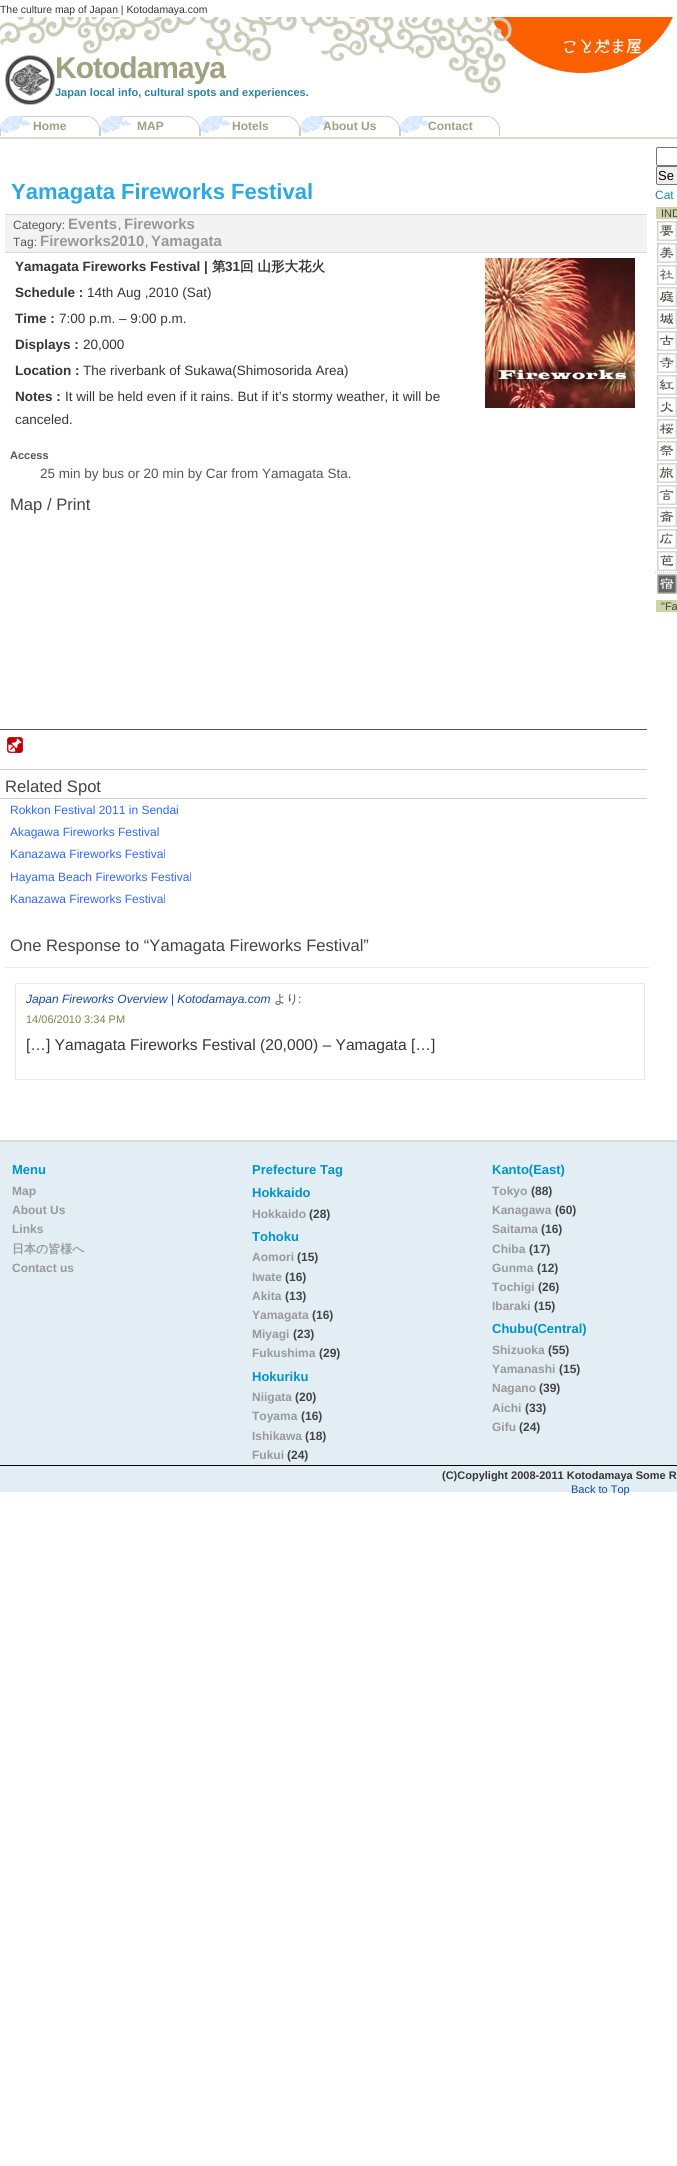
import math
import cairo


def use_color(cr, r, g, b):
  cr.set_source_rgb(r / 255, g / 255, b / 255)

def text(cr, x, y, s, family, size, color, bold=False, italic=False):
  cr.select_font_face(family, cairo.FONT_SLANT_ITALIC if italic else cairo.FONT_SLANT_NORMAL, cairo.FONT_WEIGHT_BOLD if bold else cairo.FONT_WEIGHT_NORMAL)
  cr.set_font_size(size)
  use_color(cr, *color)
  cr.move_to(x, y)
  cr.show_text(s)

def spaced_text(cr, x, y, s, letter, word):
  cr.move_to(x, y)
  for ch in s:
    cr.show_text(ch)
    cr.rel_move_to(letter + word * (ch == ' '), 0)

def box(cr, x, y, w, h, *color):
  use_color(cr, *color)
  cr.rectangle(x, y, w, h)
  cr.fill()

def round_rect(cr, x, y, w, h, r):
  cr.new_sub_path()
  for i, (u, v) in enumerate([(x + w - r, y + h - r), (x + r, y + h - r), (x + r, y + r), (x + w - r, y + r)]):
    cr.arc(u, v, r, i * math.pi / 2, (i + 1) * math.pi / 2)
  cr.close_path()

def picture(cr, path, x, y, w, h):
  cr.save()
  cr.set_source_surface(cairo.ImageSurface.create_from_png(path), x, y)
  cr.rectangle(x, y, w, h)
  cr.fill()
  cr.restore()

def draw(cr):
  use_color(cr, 255, 255, 255)
  cr.paint()
  box(cr, 0, 137, 677, 2, 221, 220, 204)
  picture(cr, "img_01.png", 0, 17, 677, 120)
  picture(cr, "img_02.png", 5, 55, 50, 50)
  picture(cr, "img_03.png", 0, 116, 100, 20)
  picture(cr, "img_03.png", 100, 116, 100, 20)
  picture(cr, "img_03.png", 200, 116, 100, 20)
  picture(cr, "img_03.png", 300, 116, 100, 20)
  picture(cr, "img_03.png", 400, 116, 100, 20)
  box(cr, 5, 215, 642, 37, 243, 243, 243)
  box(cr, 5, 214, 642, 1, 212, 220, 214)
  box(cr, 5, 252, 642, 1, 212, 220, 214)
  picture(cr, "img_04.png", 485, 258, 150, 150)
  box(cr, 0, 729, 647, 1, 85, 85, 85)
  picture(cr, "img_05.png", 7, 737, 16, 16)
  box(cr, 0, 769, 647, 1, 211, 203, 198)
  box(cr, 0, 798, 647, 1, 211, 203, 198)
  box(cr, 5, 967, 645, 1, 238, 238, 238)
  cr.rectangle(15.5, 983.5, 629, 96)
  use_color(cr, 233, 233, 233)
  cr.set_line_width(1)
  cr.stroke()
  round_rect(cr, 656.5, 147.5, 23, 18, 1.5)
  use_color(cr, 118, 118, 118)
  cr.stroke()
  use_color(cr, 239, 239, 239)
  round_rect(cr, 656.5, 166.5, 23, 18, 1.5)
  cr.fill_preserve()
  use_color(cr, 118, 118, 118)
  cr.stroke()
  box(cr, 656, 207, 21, 12, 208, 210, 167)
  picture(cr, "img_06.png", 657, 221, 20, 20)
  picture(cr, "img_07.png", 657, 243, 20, 20)
  picture(cr, "img_08.png", 657, 265, 20, 20)
  picture(cr, "img_09.png", 657, 287, 20, 20)
  picture(cr, "img_10.png", 657, 309, 20, 20)
  picture(cr, "img_11.png", 657, 331, 20, 20)
  picture(cr, "img_12.png", 657, 353, 20, 20)
  picture(cr, "img_13.png", 657, 375, 20, 20)
  picture(cr, "img_14.png", 657, 397, 20, 20)
  picture(cr, "img_15.png", 657, 419, 20, 20)
  picture(cr, "img_16.png", 657, 441, 20, 20)
  picture(cr, "img_17.png", 657, 463, 20, 20)
  picture(cr, "img_18.png", 657, 485, 20, 20)
  picture(cr, "img_19.png", 657, 507, 20, 20)
  picture(cr, "img_20.png", 657, 529, 20, 20)
  picture(cr, "img_21.png", 657, 551, 20, 20)
  picture(cr, "img_22.png", 657, 574, 20, 20)
  cr.new_path()
  cr.move_to(655, 572.5)
  cr.line_to(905, 572.5)
  use_color(cr, 195, 195, 195)
  cr.set_dash([1, 1])
  cr.stroke()
  box(cr, 656, 600, 21, 12, 208, 210, 167)
  box(cr, 0, 1142, 677, 350, 227, 237, 244)
  box(cr, 0, 1140, 677, 2, 220, 220, 220)
  box(cr, 0, 1465, 677, 1, 0, 0, 0)
  text(cr, 0, 13, "The culture map of Japan | Kotodamaya.com", "Liberation Sans", 10.4, (54, 54, 54))
  cr.select_font_face("Liberation Sans", cairo.FONT_SLANT_NORMAL, cairo.FONT_WEIGHT_BOLD)
  cr.set_font_size(30)
  use_color(cr, 159, 161, 128)
  spaced_text(cr, 55, 78, "Kotodamaya", -1, 0)
  text(cr, 55, 96, "Japan local info, cultural spots and experiences.", "Liberation Sans", 11, (42, 131, 162), bold=True)
  text(cr, 33, 130, "Home", "Liberation Sans", 12, (159, 161, 128), bold=True)
  text(cr, 137, 130, "MAP", "Liberation Sans", 12, (159, 161, 128), bold=True)
  text(cr, 232, 130, "Hotels", "Liberation Sans", 12, (159, 161, 128), bold=True)
  text(cr, 323, 130, "About Us", "Liberation Sans", 12, (159, 161, 128), bold=True)
  text(cr, 428, 130, "Contact", "Liberation Sans", 12, (159, 161, 128), bold=True)
  text(cr, 11, 199, "Yamagata Fireworks Festival", "Liberation Sans", 22, (44, 169, 225), bold=True)
  text(cr, 13, 229, "Category:", "Liberation Sans", 12, (85, 85, 85))
  text(cr, 68, 229, "Events", "Liberation Sans", 15, (153, 153, 153), bold=True)
  text(cr, 118, 229, ",", "Liberation Sans", 12, (85, 85, 85))
  text(cr, 124, 229, "Fireworks", "Liberation Sans", 15, (153, 153, 153), bold=True)
  text(cr, 13, 246, "Tag:", "Liberation Sans", 12, (85, 85, 85))
  text(cr, 40, 246, "Fireworks2010", "Liberation Sans", 15, (153, 153, 153), bold=True)
  text(cr, 145, 246, ",", "Liberation Sans", 12, (85, 85, 85))
  text(cr, 151, 246, "Yamagata", "Liberation Sans", 15, (153, 153, 153), bold=True)
  text(cr, 15, 271, "Yamagata Fireworks Festival |", "Liberation Sans", 13.5, (54, 54, 54), bold=True)
  text(cr, 212, 271, "第", "WenQuanYi Zen Hei", 13.5, (54, 54, 54), bold=True)
  text(cr, 225, 271, "31", "Liberation Sans", 13.5, (54, 54, 54), bold=True)
  text(cr, 240, 271, "回 山形大花火", "WenQuanYi Zen Hei", 13.5, (54, 54, 54), bold=True)
  text(cr, 15, 297, "Schedule :", "Liberation Sans", 13.5, (54, 54, 54), bold=True)
  text(cr, 87, 297, "14th Aug ,2010 (Sat)", "Liberation Sans", 13.5, (54, 54, 54))
  text(cr, 15, 323, "Time :", "Liberation Sans", 13.5, (54, 54, 54), bold=True)
  text(cr, 59, 323, "7:00 p.m. – 9:00 p.m.", "Liberation Sans", 13.5, (54, 54, 54))
  text(cr, 15, 349, "Displays :", "Liberation Sans", 13.5, (54, 54, 54), bold=True)
  text(cr, 83, 349, "20,000", "Liberation Sans", 13.5, (54, 54, 54))
  text(cr, 15, 375, "Location :", "Liberation Sans", 13.5, (54, 54, 54), bold=True)
  text(cr, 83, 375, "The riverbank of Sukawa(Shimosorida Area)", "Liberation Sans", 13.5, (54, 54, 54))
  text(cr, 15, 401, "Notes :", "Liberation Sans", 13.5, (54, 54, 54), bold=True)
  text(cr, 65, 401, "It will be held even if it rains. But if it’s stormy weather, it will be", "Liberation Sans", 13.5, (54, 54, 54))
  text(cr, 15, 424, "canceled.", "Liberation Sans", 13.5, (54, 54, 54))
  text(cr, 10, 459, "Access", "Liberation Sans", 11, (85, 85, 85), bold=True)
  text(cr, 40, 478, "25 min by bus or 20 min by Car from Yamagata Sta.", "Liberation Sans", 13.5, (85, 85, 85))
  text(cr, 10, 510, "Map / Print", "Liberation Sans", 16.6, (68, 68, 68))
  text(cr, 5, 792, "Related Spot", "Liberation Sans", 16.6, (68, 68, 68))
  text(cr, 10, 814, "Rokkon Festival 2011 in Sendai", "Liberation Sans", 12, (51, 102, 255))
  text(cr, 10, 836, "Akagawa Fireworks Festival", "Liberation Sans", 12, (51, 102, 255))
  text(cr, 10, 858, "Kanazawa Fireworks Festival", "Liberation Sans", 12, (51, 102, 255))
  text(cr, 10, 881, "Hayama Beach Fireworks Festival", "Liberation Sans", 12, (51, 102, 255))
  text(cr, 10, 903, "Kanazawa Fireworks Festival", "Liberation Sans", 12, (51, 102, 255))
  text(cr, 10, 951, "One Response to “Yamagata Fireworks Festival”", "Liberation Sans", 16.6, (68, 68, 68))
  text(cr, 26, 1003, "Japan Fireworks Overview | Kotodamaya.com", "Liberation Sans", 12, (18, 74, 168), italic=True)
  text(cr, 274, 1003, "より", "WenQuanYi Zen Hei Medium", 12, (68, 68, 68))
  text(cr, 298, 1003, ":", "Liberation Sans", 12, (68, 68, 68))
  text(cr, 26, 1023, "14/06/2010 3:34 PM", "Liberation Sans", 11, (132, 129, 68))
  text(cr, 26, 1050, "[…] Yamagata Fireworks Festival (20,000) – Yamagata […]", "Liberation Sans", 15.6, (54, 54, 54))
  text(cr, 658, 180, "Se", "Liberation Sans", 13, (0, 0, 0))
  text(cr, 655, 199, "Cat", "Liberation Sans", 12, (42, 131, 162))
  text(cr, 661, 217, "IND", "Liberation Sans", 11, (68, 68, 68))
  text(cr, 661, 610, "\"Fa", "Liberation Sans", 11, (68, 68, 68))
  text(cr, 12, 1174, "Menu", "Liberation Sans", 13, (0, 148, 200), bold=True)
  text(cr, 12, 1195, "Map", "Liberation Sans", 12, (153, 153, 153), bold=True)
  text(cr, 12, 1214, "About Us", "Liberation Sans", 12, (153, 153, 153), bold=True)
  text(cr, 12, 1233, "Links", "Liberation Sans", 12, (153, 153, 153), bold=True)
  text(cr, 12, 1253, "日本の皆様へ", "WenQuanYi Zen Hei", 12, (153, 153, 153), bold=True)
  text(cr, 12, 1272, "Contact us", "Liberation Sans", 12, (153, 153, 153), bold=True)
  text(cr, 252, 1174, "Prefecture Tag", "Liberation Sans", 13, (0, 148, 200), bold=True)
  text(cr, 252, 1197, "Hokkaido", "Liberation Sans", 13, (0, 148, 200), bold=True)
  text(cr, 252, 1218, "Hokkaido", "Liberation Sans", 12, (153, 153, 153), bold=True)
  text(cr, 309, 1218, "(28)", "Liberation Sans", 12, (68, 68, 68), bold=True)
  text(cr, 252, 1241, "Tohoku", "Liberation Sans", 13, (0, 148, 200), bold=True)
  text(cr, 252, 1261, "Aomori", "Liberation Sans", 12, (153, 153, 153), bold=True)
  text(cr, 297, 1261, "(15)", "Liberation Sans", 12, (68, 68, 68), bold=True)
  text(cr, 252, 1281, "Iwate", "Liberation Sans", 12, (153, 153, 153), bold=True)
  text(cr, 285, 1281, "(16)", "Liberation Sans", 12, (68, 68, 68), bold=True)
  text(cr, 252, 1300, "Akita", "Liberation Sans", 12, (153, 153, 153), bold=True)
  text(cr, 285, 1300, "(13)", "Liberation Sans", 12, (68, 68, 68), bold=True)
  text(cr, 252, 1319, "Yamagata", "Liberation Sans", 12, (153, 153, 153), bold=True)
  text(cr, 312, 1319, "(16)", "Liberation Sans", 12, (68, 68, 68), bold=True)
  text(cr, 252, 1338, "Miyagi", "Liberation Sans", 12, (153, 153, 153), bold=True)
  text(cr, 293, 1338, "(23)", "Liberation Sans", 12, (68, 68, 68), bold=True)
  text(cr, 252, 1357, "Fukushima", "Liberation Sans", 12, (153, 153, 153), bold=True)
  text(cr, 319, 1357, "(29)", "Liberation Sans", 12, (68, 68, 68), bold=True)
  text(cr, 252, 1381, "Hokuriku", "Liberation Sans", 13, (0, 148, 200), bold=True)
  text(cr, 252, 1401, "Niigata", "Liberation Sans", 12, (153, 153, 153), bold=True)
  text(cr, 295, 1401, "(20)", "Liberation Sans", 12, (68, 68, 68), bold=True)
  text(cr, 252, 1420, "Toyama", "Liberation Sans", 12, (153, 153, 153), bold=True)
  text(cr, 301, 1420, "(16)", "Liberation Sans", 12, (68, 68, 68), bold=True)
  text(cr, 252, 1440, "Ishikawa", "Liberation Sans", 12, (153, 153, 153), bold=True)
  text(cr, 305, 1440, "(18)", "Liberation Sans", 12, (68, 68, 68), bold=True)
  text(cr, 252, 1459, "Fukui", "Liberation Sans", 12, (153, 153, 153), bold=True)
  text(cr, 287, 1459, "(24)", "Liberation Sans", 12, (68, 68, 68), bold=True)
  text(cr, 492, 1174, "Kanto(East)", "Liberation Sans", 13, (0, 148, 200), bold=True)
  text(cr, 492, 1195, "Tokyo", "Liberation Sans", 12, (153, 153, 153), bold=True)
  text(cr, 531, 1195, "(88)", "Liberation Sans", 12, (68, 68, 68), bold=True)
  text(cr, 492, 1214, "Kanagawa", "Liberation Sans", 12, (153, 153, 153), bold=True)
  text(cr, 555, 1214, "(60)", "Liberation Sans", 12, (68, 68, 68), bold=True)
  text(cr, 492, 1233, "Saitama", "Liberation Sans", 12, (153, 153, 153), bold=True)
  text(cr, 541, 1233, "(16)", "Liberation Sans", 12, (68, 68, 68), bold=True)
  text(cr, 492, 1253, "Chiba", "Liberation Sans", 12, (153, 153, 153), bold=True)
  text(cr, 529, 1253, "(17)", "Liberation Sans", 12, (68, 68, 68), bold=True)
  text(cr, 492, 1272, "Gunma", "Liberation Sans", 12, (153, 153, 153), bold=True)
  text(cr, 537, 1272, "(12)", "Liberation Sans", 12, (68, 68, 68), bold=True)
  text(cr, 492, 1291, "Tochigi", "Liberation Sans", 12, (153, 153, 153), bold=True)
  text(cr, 538, 1291, "(26)", "Liberation Sans", 12, (68, 68, 68), bold=True)
  text(cr, 492, 1310, "Ibaraki", "Liberation Sans", 12, (153, 153, 153), bold=True)
  text(cr, 534, 1310, "(15)", "Liberation Sans", 12, (68, 68, 68), bold=True)
  text(cr, 492, 1333, "Chubu(Central)", "Liberation Sans", 13, (0, 148, 200), bold=True)
  text(cr, 492, 1354, "Shizuoka", "Liberation Sans", 12, (153, 153, 153), bold=True)
  text(cr, 548, 1354, "(55)", "Liberation Sans", 12, (68, 68, 68), bold=True)
  text(cr, 492, 1373, "Yamanashi", "Liberation Sans", 12, (153, 153, 153), bold=True)
  text(cr, 559, 1373, "(15)", "Liberation Sans", 12, (68, 68, 68), bold=True)
  text(cr, 492, 1392, "Nagano", "Liberation Sans", 12, (153, 153, 153), bold=True)
  text(cr, 539, 1392, "(39)", "Liberation Sans", 12, (68, 68, 68), bold=True)
  text(cr, 492, 1412, "Aichi", "Liberation Sans", 12, (153, 153, 153), bold=True)
  text(cr, 525, 1412, "(33)", "Liberation Sans", 12, (68, 68, 68), bold=True)
  text(cr, 492, 1431, "Gifu", "Liberation Sans", 12, (153, 153, 153), bold=True)
  text(cr, 519, 1431, "(24)", "Liberation Sans", 12, (68, 68, 68), bold=True)
  text(cr, 442, 1479, "(C)Copylight 2008-2011 Kotodamaya Some R", "Liberation Sans", 11, (54, 54, 54), bold=True)
  text(cr, 571, 1493, "Back to Top", "Liberation Sans", 11, (18, 74, 168))


surface = cairo.ImageSurface(cairo.FORMAT_RGB24, 677, 2166)
cr = cairo.Context(surface)
options = cairo.FontOptions()
options.set_hint_metrics(cairo.HINT_METRICS_OFF)
options.set_hint_style(cairo.HINT_STYLE_NONE)
cr.set_font_options(options)
cr.set_miter_limit(4)
draw(cr)
surface.write_to_png("out.png")
